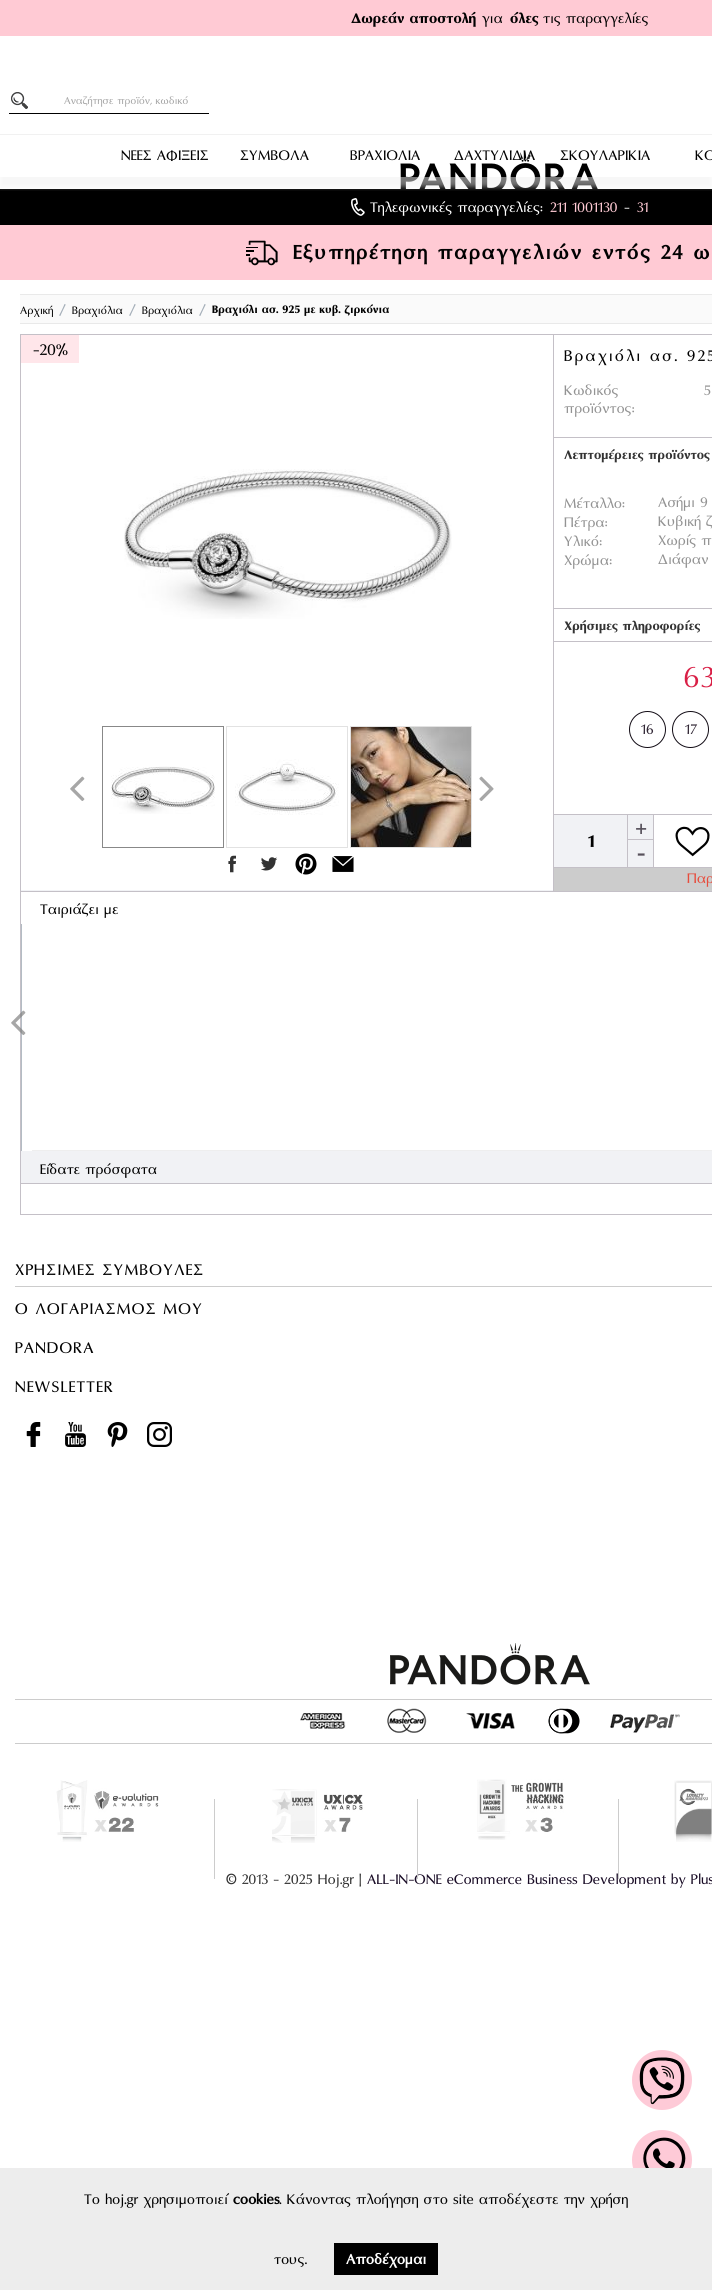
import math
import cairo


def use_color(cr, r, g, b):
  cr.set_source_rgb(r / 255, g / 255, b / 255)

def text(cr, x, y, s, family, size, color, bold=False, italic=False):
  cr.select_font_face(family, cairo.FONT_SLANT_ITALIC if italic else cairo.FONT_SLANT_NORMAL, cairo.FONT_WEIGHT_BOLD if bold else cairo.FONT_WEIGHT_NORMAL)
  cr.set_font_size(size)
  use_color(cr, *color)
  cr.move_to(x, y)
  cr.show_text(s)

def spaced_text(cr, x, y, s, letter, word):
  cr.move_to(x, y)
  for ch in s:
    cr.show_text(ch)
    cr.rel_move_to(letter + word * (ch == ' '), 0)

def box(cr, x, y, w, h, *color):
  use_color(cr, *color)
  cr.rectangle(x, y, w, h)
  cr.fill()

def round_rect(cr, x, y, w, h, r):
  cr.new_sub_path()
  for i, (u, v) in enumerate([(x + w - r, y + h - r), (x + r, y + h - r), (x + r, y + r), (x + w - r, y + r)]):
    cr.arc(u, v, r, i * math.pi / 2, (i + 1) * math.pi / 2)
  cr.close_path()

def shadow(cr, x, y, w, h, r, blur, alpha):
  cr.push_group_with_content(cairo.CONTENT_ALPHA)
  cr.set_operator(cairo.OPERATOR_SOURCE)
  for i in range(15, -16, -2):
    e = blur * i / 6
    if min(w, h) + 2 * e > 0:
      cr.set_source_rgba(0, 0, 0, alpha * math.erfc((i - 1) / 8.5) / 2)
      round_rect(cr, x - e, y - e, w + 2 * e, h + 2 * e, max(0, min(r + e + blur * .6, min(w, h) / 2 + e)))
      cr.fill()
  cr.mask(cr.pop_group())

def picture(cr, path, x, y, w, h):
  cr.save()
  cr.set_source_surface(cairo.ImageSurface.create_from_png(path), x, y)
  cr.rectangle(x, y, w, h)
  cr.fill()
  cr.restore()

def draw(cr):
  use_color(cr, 255, 255, 255)
  cr.paint()
  box(cr, 0, 0, 712, 36, 255, 202, 212)
  picture(cr, "img_01.png", 11, 92, 17, 17)
  box(cr, 9, 113, 200, 1, 0, 0, 0)
  picture(cr, "img_02.png", 400, 151, 198, 38)
  box(cr, 0, 134, 712, 1, 241, 241, 241)
  box(cr, 0, 189, 712, 36, 0, 0, 0)
  cr.save()
  cr.rectangle(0, 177, 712, 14)
  cr.clip()
  use_color(cr, 238, 238, 238)
  shadow(cr, 0, 167, 712, 20, 0, 2.5, 0.5)
  cr.restore()
  picture(cr, "img_03.png", 351, 198, 14, 18)
  box(cr, 0, 225, 712, 55, 255, 202, 212)
  picture(cr, "img_04.png", 246, 240, 32, 26)
  box(cr, 20, 295, 692, 28, 250, 250, 250)
  box(cr, 20, 294, 692, 1, 233, 233, 233)
  box(cr, 20, 323, 692, 1, 233, 233, 233)
  box(cr, 21, 890, 691, 293, 241, 242, 245)
  box(cr, 20, 890, 1, 293, 196, 192, 199)
  cr.rectangle(20.5, 334.5, 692, 557)
  cr.set_line_width(1)
  cr.stroke()
  box(cr, 553, 335, 1, 556, 196, 192, 199)
  box(cr, 21, 335, 58, 28, 255, 230, 234)
  box(cr, 554, 437, 158, 1, 196, 192, 199)
  box(cr, 554, 608, 158, 1, 196, 192, 199)
  box(cr, 554, 641, 158, 1, 196, 192, 199)
  cr.arc(647.5, 729.5, 18, 0, 2 * math.pi)
  use_color(cr, 19, 13, 22)
  cr.stroke()
  cr.arc(690.5, 729.5, 18, 0, 2 * math.pi)
  cr.stroke()
  box(cr, 628, 815, 25, 24, 241, 242, 245)
  box(cr, 554, 814, 74, 1, 196, 192, 199)
  cr.rectangle(627.5, 814.5, 26, 28)
  cr.stroke()
  box(cr, 554, 815, 73, 52, 241, 242, 245)
  box(cr, 554, 867, 74, 1, 196, 192, 199)
  use_color(cr, 241, 242, 245)
  cr.rectangle(627.5, 839.5, 26, 28)
  cr.fill_preserve()
  use_color(cr, 196, 192, 199)
  cr.stroke()
  cr.rectangle(653.5, 814.5, 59, 53)
  cr.stroke()
  picture(cr, "img_05.png", 675, 826, 35, 31)
  box(cr, 554, 868, 158, 23, 204, 204, 204)
  picture(cr, "img_06.png", 124, 469, 328, 150)
  cr.rectangle(102.5, 726.5, 121, 121)
  use_color(cr, 136, 136, 136)
  cr.stroke()
  picture(cr, "img_07.png", 111, 766, 104, 48)
  cr.rectangle(226.5, 726.5, 121, 121)
  use_color(cr, 226, 226, 226)
  cr.stroke()
  picture(cr, "img_08.png", 235, 759, 104, 56)
  cr.rectangle(350.5, 726.5, 121, 121)
  cr.stroke()
  picture(cr, "img_09.png", 351, 727, 120, 120)
  picture(cr, "img_10.png", 70, 776, 15, 25)
  picture(cr, "img_11.png", 479, 776, 15, 25)
  picture(cr, "img_12.png", 228, 855, 8, 18)
  picture(cr, "img_13.png", 261, 857, 17, 14)
  picture(cr, "img_14.png", 295, 853, 22, 22)
  picture(cr, "img_15.png", 332, 856, 22, 16)
  box(cr, 21, 924, 1, 227, 180, 188, 196)
  box(cr, 22, 893, 690, 30, 255, 255, 255)
  cr.rectangle(21.5, 892.5, 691, 31)
  cr.stroke()
  box(cr, 22, 924, 690, 227, 255, 255, 255)
  picture(cr, "img_16.png", 11, 1010, 15, 25)
  box(cr, 32, 1150, 680, 1, 238, 238, 238)
  cr.rectangle(20.5, 1183.5, 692, 31)
  use_color(cr, 196, 192, 199)
  cr.stroke()
  box(cr, 15, 1286, 697, 1, 204, 204, 204)
  picture(cr, "img_17.png", 26, 1422, 15, 25)
  picture(cr, "img_18.png", 65, 1422, 21, 25)
  picture(cr, "img_19.png", 107, 1422, 21, 25)
  picture(cr, "img_20.png", 147, 1422, 25, 25)
  picture(cr, "img_21.png", 390, 1643, 200, 42)
  box(cr, 15, 1699, 697, 1, 204, 204, 204)
  box(cr, 15, 1743, 697, 1, 204, 204, 204)
  picture(cr, "img_22.png", 300, 1708, 380, 26)
  picture(cr, "img_23.png", 56, 1780, 103, 62)
  box(cr, 214, 1799, 1, 80, 204, 204, 204)
  picture(cr, "img_24.png", 272, 1789, 91, 54)
  picture(cr, "img_25.png", 477, 1779, 87, 61)
  picture(cr, "img_26.png", 674, 1780, 38, 62)
  picture(cr, "img_27.png", 632, 2050, 60, 60)
  picture(cr, "img_28.png", 632, 2130, 60, 38)
  box(cr, 0, 2168, 712, 122, 237, 237, 237)
  box(cr, 334, 2243, 104, 32, 0, 0, 0)
  text(cr, 351, 23, "Δωρεάν αποστολή", "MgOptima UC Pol", 18, (1, 1, 1), bold=True)
  text(cr, 482, 23, "για", "MgOptima UC Pol", 18, (1, 1, 1))
  text(cr, 510, 23, "όλες", "MgOptima UC Pol", 18, (1, 1, 1), bold=True)
  text(cr, 543, 23, "τις παραγγελίες", "MgOptima UC Pol", 18, (1, 1, 1))
  text(cr, 64, 104, "Αναζήτησε προϊόν, κωδικό", "MgOptima UC Pol", 13, (165, 165, 165))
  text(cr, 121, 160, "NEΕΣ ΑΦΙΞΕΙΣ", "MgOptima UC Pol", 18, (1, 1, 1))
  text(cr, 240, 160, "ΣΥΜΒΟΛΑ", "MgOptima UC Pol", 18, (1, 1, 1))
  text(cr, 350, 160, "ΒΡΑΧΙΟΛΙΑ", "MgOptima UC Pol", 18, (1, 1, 1))
  text(cr, 454, 160, "ΔΑΧΤΥΛΙΔΙΑ", "MgOptima UC Pol", 18, (1, 1, 1))
  text(cr, 560, 160, "ΣΚΟΥΛΑΡΙΚΙΑ", "MgOptima UC Pol", 18, (1, 1, 1))
  text(cr, 695, 160, "ΚΟ", "MgOptima UC Pol", 18, (1, 1, 1))
  text(cr, 370, 212, "Τηλεφωνικές παραγγελίες:", "MgOptima UC Pol", 18, (255, 255, 255))
  text(cr, 550, 212, "211 1001130", "MgOptima UC Pol", 18, (255, 202, 212))
  text(cr, 624, 212, "-", "MgOptima UC Pol", 18, (255, 255, 255))
  text(cr, 637, 212, "31", "MgOptima UC Pol", 18, (255, 202, 212))
  cr.select_font_face("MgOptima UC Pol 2", cairo.FONT_SLANT_NORMAL, cairo.FONT_WEIGHT_BOLD)
  cr.set_font_size(25)
  use_color(cr, 1, 1, 1)
  spaced_text(cr, 293, 259, "Εξυπηρέτηση παραγγελιών εντός 24 ω", 2, 0)
  text(cr, 20, 314, "Αρχική", "MgOptima UC Pol", 14, (1, 1, 1))
  text(cr, 59, 314, "/", "MgOptima UC Pol", 18, (165, 175, 185))
  text(cr, 72, 314, "Βραχιόλια", "MgOptima UC Pol", 14, (1, 1, 1))
  text(cr, 129, 314, "/", "MgOptima UC Pol", 18, (165, 175, 185))
  text(cr, 142, 314, "Βραχιόλια", "MgOptima UC Pol", 14, (1, 1, 1))
  text(cr, 199, 314, "/", "MgOptima UC Pol", 18, (165, 175, 185))
  text(cr, 212, 313, "Βραχιόλι ασ. 925 με κυβ. ζιρκόνια", "MgOptima UC Pol", 14, (1, 1, 1), bold=True)
  text(cr, 33, 355, "-20%", "MgOptima UC Pol", 20, (1, 1, 1))
  spaced_text(cr, 564, 361, "Βραχιόλι ασ. 925", 2, 0)
  text(cr, 564, 395, "Κωδικός", "MgOptima UC Pol", 18, (147, 147, 147))
  text(cr, 564, 413, "προϊόντος:", "MgOptima UC Pol", 18, (147, 147, 147))
  text(cr, 704, 395, "5", "MgOptima UC Pol", 18, (147, 147, 147))
  text(cr, 564, 459, "Λεπτομέρειες προϊόντος", "MgOptima UC Pol", 16, (51, 51, 51), bold=True)
  text(cr, 564, 508, "Μέταλλο:", "MgOptima UC Pol", 18, (147, 147, 147))
  text(cr, 658, 507, "Ασήμι 9", "MgOptima UC Pol", 18, (147, 147, 147))
  text(cr, 564, 527, "Πέτρα:", "MgOptima UC Pol", 18, (147, 147, 147))
  text(cr, 658, 526, "Κυβική ζ", "MgOptima UC Pol", 18, (147, 147, 147))
  text(cr, 564, 546, "Υλικό:", "MgOptima UC Pol", 18, (147, 147, 147))
  text(cr, 658, 545, "Χωρίς π", "MgOptima UC Pol", 18, (147, 147, 147))
  text(cr, 564, 565, "Χρώμα:", "MgOptima UC Pol", 18, (147, 147, 147))
  text(cr, 658, 564, "Διάφαν", "MgOptima UC Pol", 18, (147, 147, 147))
  text(cr, 564, 630, "Χρήσιμες πληροφορίες", "MgOptima UC Pol", 16, (51, 51, 51), bold=True)
  text(cr, 683, 687, "63", "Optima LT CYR", 30, (217, 31, 70))
  text(cr, 641, 734, "16", "MgOptima UC Pol", 18, (48, 38, 52))
  text(cr, 685, 734, "17", "MgOptima UC Pol", 18, (48, 38, 52))
  text(cr, 636, 834, "+", "MgOptima UC Pol", 22, (87, 81, 91), bold=True)
  text(cr, 588, 847, "1", "MgOptima UC Pol", 22, (1, 1, 1), bold=True)
  text(cr, 637, 859, "-", "MgOptima UC Pol", 22, (87, 81, 91), bold=True)
  text(cr, 687, 883, "Παρ", "MgOptima UC Pol", 18, (231, 76, 60))
  text(cr, 40, 914, "Ταιριάζει με", "MgOptima UC Pol", 18, (1, 1, 1))
  text(cr, 40, 1174, "Είδατε πρόσφατα", "MgOptima UC Pol", 18, (1, 1, 1))
  cr.set_font_size(20)
  spaced_text(cr, 15, 1275, "ΧΡΗΣΙΜΕΣ ΣΥΜΒΟΥΛΕΣ", 1, 0)
  spaced_text(cr, 15, 1314, "Ο ΛΟΓΑΡΙΑΣΜΟΣ ΜΟΥ", 1, 0)
  spaced_text(cr, 15, 1353, "PANDORA", 1, 0)
  spaced_text(cr, 15, 1392, "NEWSLETTER", 1, 0)
  text(cr, 226, 1884, "© 2013 - 2025 Hoj.gr |", "MgOptima UC Pol", 18, (51, 51, 51))
  text(cr, 367, 1884, "ALL-IN-ONE eCommerce Business Development by Plus", "MgOptima UC Pol", 18, (25, 12, 38))
  box(cr, 618, 1799, 1, 80, 204, 204, 204)
  box(cr, 417, 1799, 1, 80, 204, 204, 204)
  text(cr, 84, 2204, "Το hoj.gr χρησιμοποιεί", "MgOptima UC Pol", 18, (1, 1, 1))
  text(cr, 233, 2204, "cookies", "MgOptima UC Pol 2", 18, (1, 1, 1), bold=True)
  text(cr, 279, 2204, ". Κάνοντας πλοήγηση στο site αποδέχεστε την χρήση", "MgOptima UC Pol", 18, (1, 1, 1))
  text(cr, 274, 2264, "τους.", "MgOptima UC Pol", 18, (1, 1, 1))
  text(cr, 346, 2264, "Αποδέχομαι", "MgOptima UC Pol 2", 18, (255, 255, 255), bold=True)


surface = cairo.ImageSurface(cairo.FORMAT_RGB24, 712, 2290)
cr = cairo.Context(surface)
options = cairo.FontOptions()
options.set_hint_metrics(cairo.HINT_METRICS_OFF)
options.set_hint_style(cairo.HINT_STYLE_NONE)
cr.set_font_options(options)
cr.set_miter_limit(4)
draw(cr)
surface.write_to_png("out.png")
